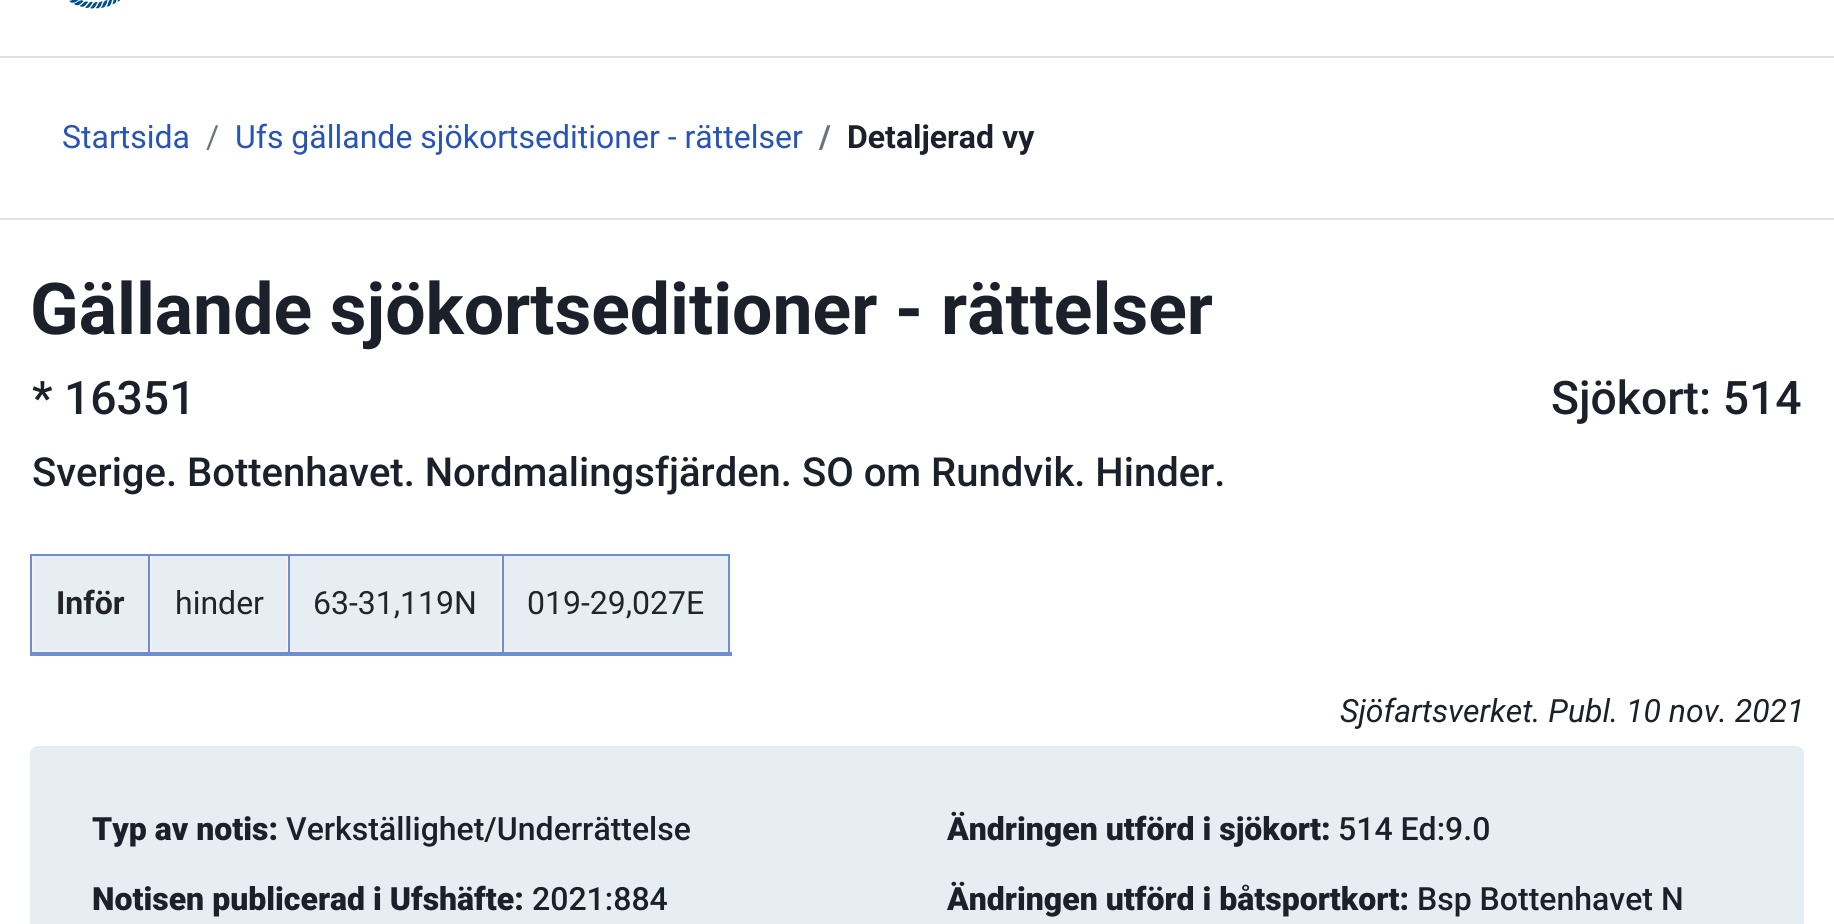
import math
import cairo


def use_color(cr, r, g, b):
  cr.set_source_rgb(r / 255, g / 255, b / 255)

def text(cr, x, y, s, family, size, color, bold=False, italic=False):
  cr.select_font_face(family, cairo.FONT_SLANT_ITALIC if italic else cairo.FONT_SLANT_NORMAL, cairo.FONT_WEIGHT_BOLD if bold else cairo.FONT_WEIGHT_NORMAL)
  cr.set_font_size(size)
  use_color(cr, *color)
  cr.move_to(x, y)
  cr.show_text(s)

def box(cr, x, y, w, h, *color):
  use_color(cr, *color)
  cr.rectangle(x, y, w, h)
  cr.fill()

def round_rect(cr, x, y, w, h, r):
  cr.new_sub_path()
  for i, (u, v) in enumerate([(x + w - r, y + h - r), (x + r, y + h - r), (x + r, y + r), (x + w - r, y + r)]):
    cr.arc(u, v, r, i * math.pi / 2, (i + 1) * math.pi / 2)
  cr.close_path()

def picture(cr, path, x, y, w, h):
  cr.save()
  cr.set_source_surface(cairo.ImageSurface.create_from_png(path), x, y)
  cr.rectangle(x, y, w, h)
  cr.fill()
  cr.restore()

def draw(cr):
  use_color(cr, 255, 255, 255)
  cr.paint()
  picture(cr, "img_01.png", 69, 0, 52, 9)
  box(cr, 0, 56, 1834, 2, 222, 226, 230)
  box(cr, 0, 218, 1834, 2, 222, 226, 230)
  box(cr, 32, 556, 696, 96, 242, 242, 242)
  box(cr, 34, 556, 114, 94, 230, 238, 244)
  box(cr, 502, 554, 228, 2, 109, 142, 213)
  box(cr, 502, 554, 2, 100, 109, 142, 213)
  box(cr, 288, 554, 216, 2, 109, 142, 213)
  box(cr, 288, 554, 2, 100, 109, 142, 213)
  box(cr, 148, 554, 142, 2, 109, 142, 213)
  box(cr, 148, 554, 2, 100, 109, 142, 213)
  box(cr, 30, 554, 120, 2, 109, 142, 213)
  box(cr, 30, 554, 2, 100, 109, 142, 213)
  box(cr, 152, 556, 134, 94, 230, 238, 244)
  box(cr, 290, 556, 210, 94, 230, 238, 244)
  box(cr, 504, 556, 224, 94, 230, 238, 244)
  box(cr, 728, 554, 2, 100, 109, 142, 213)
  box(cr, 30, 652, 702, 4, 109, 142, 213)
  use_color(cr, 230, 238, 244)
  round_rect(cr, 30, 746, 1774, 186, 8)
  cr.fill()
  text(cr, 62, 148, "Startsida", "Roboto", 32, (39, 84, 181))
  text(cr, 206, 148, "/", "Roboto", 32, (108, 117, 125))
  text(cr, 235, 148, "Ufs gällande sjökortseditioner - rättelser", "Roboto", 32, (39, 84, 181))
  text(cr, 819, 148, "/", "Roboto", 32, (108, 117, 125), bold=True)
  text(cr, 847, 148, "Detaljerad vy", "Roboto", 32, (27, 32, 43), bold=True)
  text(cr, 30, 334, "Gällande sjökortseditioner - rättelser", "Roboto", 71.5, (27, 32, 43), bold=True)
  text(cr, 32, 414, "* 16351", "Roboto Medium", 46.25, (27, 32, 43))
  text(cr, 1551, 414, "Sjökort: 514", "Roboto Medium", 46.25, (27, 32, 43))
  text(cr, 32, 486, "Sverige. Bottenhavet. Nordmalingsfjärden. SO om Rundvik. Hinder.", "Roboto Medium", 40, (27, 32, 43))
  text(cr, 56, 614, "Inför", "Roboto", 32, (33, 37, 41), bold=True)
  text(cr, 175, 614, "hinder", "Roboto", 32, (33, 37, 41))
  text(cr, 313, 614, "63-31,119N", "Roboto", 32, (33, 37, 41))
  text(cr, 527, 614, "019-29,027E", "Roboto", 32, (33, 37, 41))
  text(cr, 1340, 722, "Sjöfartsverket. Publ. 10 nov. 2021", "Roboto", 32, (27, 32, 43), italic=True)
  text(cr, 92, 840, "Typ av notis:", "Roboto Black", 32, (27, 32, 43))
  text(cr, 286, 840, "Verkställighet/Underrättelse", "Roboto Medium", 32, (27, 32, 43))
  text(cr, 92, 910, "Notisen publicerad i Ufshäfte:", "Roboto Black", 32, (27, 32, 43))
  text(cr, 532, 910, "2021:884", "Roboto Medium", 32, (27, 32, 43))
  text(cr, 947, 840, "Ändringen utförd i sjökort:", "Roboto Black", 32, (27, 32, 43))
  text(cr, 1338, 840, "514 Ed:9.0", "Roboto Medium", 32, (27, 32, 43))
  text(cr, 947, 910, "Ändringen utförd i båtsportkort:", "Roboto Black", 32, (27, 32, 43))
  text(cr, 1417, 910, "Bsp Bottenhavet N", "Roboto Medium", 32, (27, 32, 43))


surface = cairo.ImageSurface(cairo.FORMAT_RGB24, 1834, 924)
cr = cairo.Context(surface)
options = cairo.FontOptions()
options.set_hint_metrics(cairo.HINT_METRICS_OFF)
options.set_hint_style(cairo.HINT_STYLE_NONE)
cr.set_font_options(options)
cr.set_miter_limit(4)
draw(cr)
surface.write_to_png("out.png")
